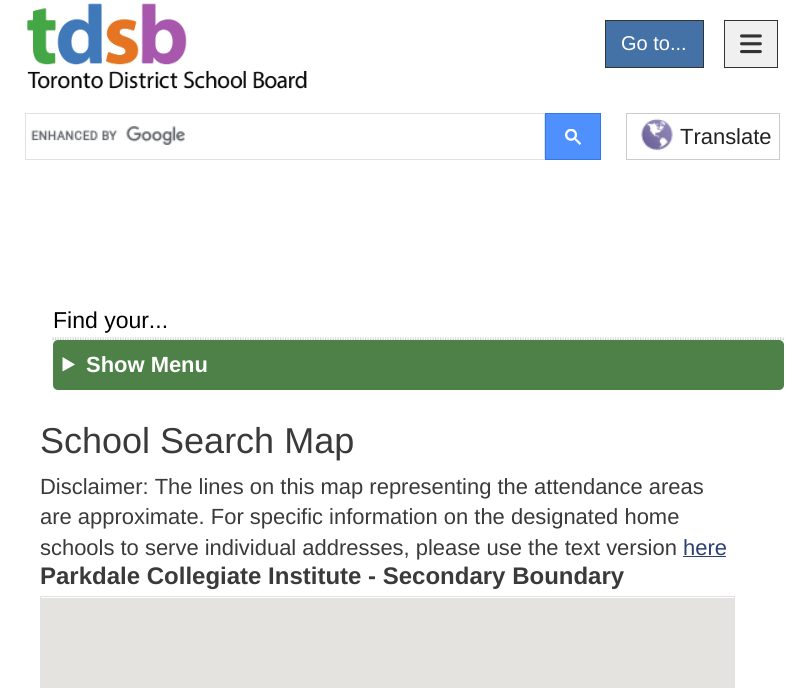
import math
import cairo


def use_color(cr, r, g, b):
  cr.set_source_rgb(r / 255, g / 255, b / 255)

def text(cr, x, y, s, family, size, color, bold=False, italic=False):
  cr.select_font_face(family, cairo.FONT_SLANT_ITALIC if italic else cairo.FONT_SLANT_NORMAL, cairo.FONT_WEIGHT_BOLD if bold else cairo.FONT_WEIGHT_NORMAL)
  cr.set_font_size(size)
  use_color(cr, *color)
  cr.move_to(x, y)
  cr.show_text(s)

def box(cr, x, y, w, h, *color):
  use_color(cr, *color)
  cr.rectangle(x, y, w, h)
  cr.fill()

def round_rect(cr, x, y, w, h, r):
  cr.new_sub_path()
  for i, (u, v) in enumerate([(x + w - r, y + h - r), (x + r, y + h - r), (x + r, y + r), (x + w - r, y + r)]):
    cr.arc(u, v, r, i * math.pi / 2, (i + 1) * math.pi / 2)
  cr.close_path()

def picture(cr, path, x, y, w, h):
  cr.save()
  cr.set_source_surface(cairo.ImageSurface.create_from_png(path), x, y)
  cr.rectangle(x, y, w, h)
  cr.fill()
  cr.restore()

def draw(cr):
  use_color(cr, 255, 255, 255)
  cr.paint()
  picture(cr, "img_01.png", 27, 3, 280, 86)
  use_color(cr, 68, 114, 166)
  cr.rectangle(605.5, 20.5, 98, 47)
  cr.fill_preserve()
  use_color(cr, 51, 51, 51)
  cr.set_line_width(1)
  cr.stroke()
  use_color(cr, 240, 240, 240)
  cr.rectangle(724.5, 20.5, 53, 47)
  cr.fill_preserve()
  use_color(cr, 51, 51, 51)
  cr.stroke()
  picture(cr, "img_02.png", 740, 34, 22, 20)
  cr.rectangle(25.5, 113.5, 519, 46)
  use_color(cr, 223, 225, 229)
  cr.stroke()
  picture(cr, "img_03.png", 31, 126, 154, 19)
  use_color(cr, 77, 144, 254)
  cr.rectangle(545.5, 113.5, 55, 46)
  cr.fill_preserve()
  use_color(cr, 48, 121, 237)
  cr.stroke()
  picture(cr, "img_04.png", 565, 129, 16, 16)
  cr.rectangle(626.5, 113.5, 153, 46)
  use_color(cr, 204, 204, 204)
  cr.stroke()
  picture(cr, "img_05.png", 641, 118, 32, 33)
  cr.new_path()
  cr.move_to(52.5, 339.5)
  cr.line_to(784, 339.5)
  use_color(cr, 201, 205, 205)
  cr.set_line_width(1.2)
  cr.set_dash([1.25, 1.25])
  cr.stroke()
  cr.new_path()
  cr.move_to(52.5, 338)
  cr.line_to(784, 338)
  cr.stroke()
  use_color(cr, 77, 129, 72)
  round_rect(cr, 53, 340, 731, 50, 5)
  cr.fill()
  use_color(cr, 255, 255, 255)
  cr.new_path()
  cr.move_to(62.5, 357)
  cr.line_to(75, 364.5)
  cr.line_to(62.5, 371.5)
  cr.close_path()
  cr.fill()
  box(cr, 683, 556, 43, 1, 45, 64, 116)
  cr.rectangle(40.5, 596.5, 694, 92)
  use_color(cr, 226, 226, 226)
  cr.set_line_width(1)
  cr.set_dash([])
  cr.stroke()
  box(cr, 41, 598, 693, 90, 229, 227, 223)
  text(cr, 621, 50, "Go to...", "Liberation Sans", 20, (255, 255, 255))
  text(cr, 680, 144, "Translate", "Liberation Sans", 21.95, (34, 34, 34))
  text(cr, 53, 328, "Find your...", "Liberation Sans", 23, (0, 0, 0))
  text(cr, 86, 372, "Show Menu", "Liberation Sans", 21.95, (255, 255, 255), bold=True)
  text(cr, 40, 453, "School Search Map", "Liberation Sans", 36, (58, 58, 58))
  text(cr, 40, 494, "Disclaimer: The lines on this map representing the attendance areas", "Liberation Sans", 21.95, (58, 58, 58))
  text(cr, 40, 524, "are approximate. For specific information on the designated home", "Liberation Sans", 21.95, (58, 58, 58))
  text(cr, 40, 555, "schools to serve individual addresses, please use the text version", "Liberation Sans", 21.95, (58, 58, 58))
  text(cr, 683, 555, "here", "Liberation Sans", 21.95, (45, 64, 116))
  text(cr, 40, 584, "Parkdale Collegiate Institute - Secondary Boundary", "Liberation Sans", 24, (58, 58, 58), bold=True)


surface = cairo.ImageSurface(cairo.FORMAT_RGB24, 811, 688)
cr = cairo.Context(surface)
options = cairo.FontOptions()
options.set_hint_metrics(cairo.HINT_METRICS_OFF)
options.set_hint_style(cairo.HINT_STYLE_NONE)
cr.set_font_options(options)
cr.set_miter_limit(4)
draw(cr)
surface.write_to_png("out.png")
